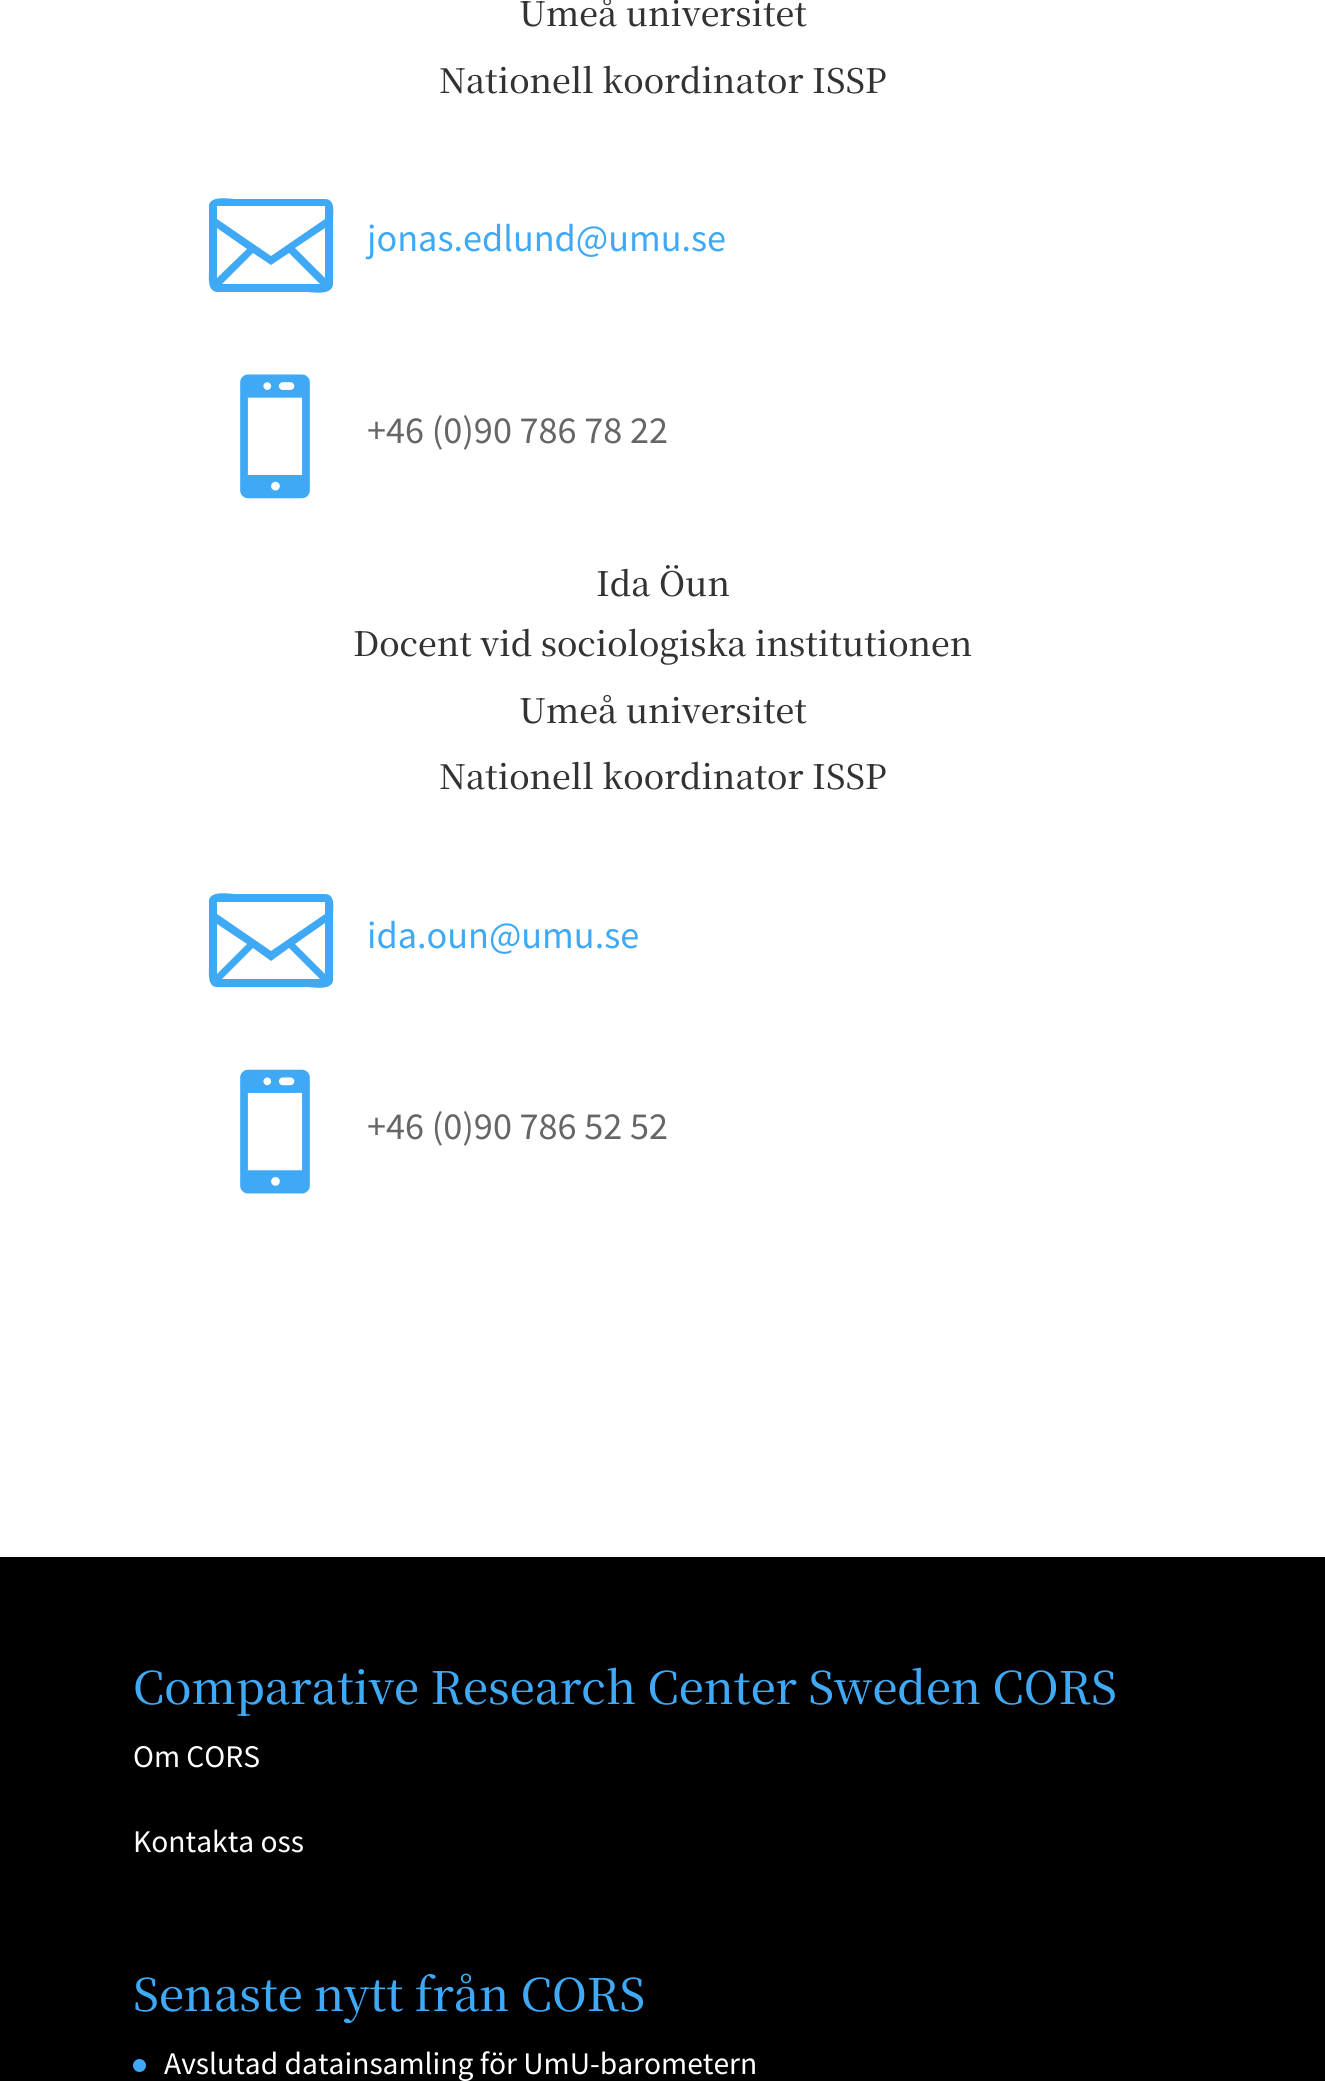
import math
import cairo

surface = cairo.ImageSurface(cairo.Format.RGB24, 1325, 2081)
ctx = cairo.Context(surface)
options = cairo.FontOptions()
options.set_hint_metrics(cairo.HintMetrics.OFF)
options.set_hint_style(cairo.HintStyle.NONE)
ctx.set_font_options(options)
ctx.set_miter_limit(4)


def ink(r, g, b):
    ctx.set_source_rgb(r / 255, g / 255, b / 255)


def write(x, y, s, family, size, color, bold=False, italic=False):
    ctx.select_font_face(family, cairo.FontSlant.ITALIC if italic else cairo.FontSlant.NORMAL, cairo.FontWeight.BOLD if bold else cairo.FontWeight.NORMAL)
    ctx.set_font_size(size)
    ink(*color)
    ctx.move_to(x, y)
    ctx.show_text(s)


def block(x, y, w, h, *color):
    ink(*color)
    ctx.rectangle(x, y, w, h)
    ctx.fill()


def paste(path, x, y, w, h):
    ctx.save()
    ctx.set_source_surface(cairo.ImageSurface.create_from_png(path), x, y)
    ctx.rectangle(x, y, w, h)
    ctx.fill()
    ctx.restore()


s1 = dict(family="Noto Serif TC ExtraLight", size=33.75, color=(51, 51, 51))
s2 = dict(family="Source Sans Pro", size=38.25, color=(63, 169, 245))
s3 = dict(family="Source Sans Pro", size=38.25, color=(102, 102, 102))
s4 = dict(family="Noto Serif TC ExtraLight", size=45, color=(63, 169, 245))
s5 = dict(family="Source Sans Pro", size=31.5, color=(255, 255, 255))

ink(255, 255, 255)
ctx.paint()
write(519, 26, "Umeå universitet", **s1)
write(439, 93, "Nationell koordinator ISSP", **s1)
ink(63, 169, 245)
ctx.new_path()
ctx.move_to(325, 199)
ctx.line_to(235, 199)
ctx.curve_to(231, 199, 211, 195, 209, 205)
ctx.line_to(209, 271)
ctx.curve_to(209, 277, 207, 291, 217, 292)
ctx.line_to(307, 292)
ctx.curve_to(312, 292, 331, 296, 333, 285)
ctx.line_to(333, 219)
ctx.curve_to(333, 214, 336, 199, 325, 199)
ctx.close_path()
ctx.move_to(253, 253)
ctx.line_to(271, 265)
ctx.line_to(289, 253)
ctx.line_to(320, 284)
ctx.line_to(222, 284)
ctx.close_path()
ctx.move_to(217, 278)
ctx.line_to(217, 228)
ctx.line_to(247, 249)
ctx.close_path()
ctx.move_to(295, 248)
ctx.line_to(325, 228)
ctx.line_to(325, 278)
ctx.close_path()
ctx.move_to(325, 206)
ctx.line_to(325, 219)
ctx.line_to(271, 256)
ctx.line_to(217, 219)
ctx.line_to(217, 206)
ctx.close_path()
ctx.fill()
write(367, 251, "jonas.edlund@umu.se", **s2)
paste("pic1.png", 240, 374, 70, 125)
write(367, 443, "+46 (0)90 786 78 22", **s3)
write(596, 596, "Ida Öun", **s1)
write(353, 656, "Docent vid sociologiska institutionen", **s1)
write(519, 723, "Umeå universitet", **s1)
write(439, 789, "Nationell koordinator ISSP", **s1)
ink(63, 169, 245)
ctx.new_path()
ctx.move_to(325, 894)
ctx.line_to(235, 894)
ctx.curve_to(231, 894, 211, 890, 209, 900)
ctx.line_to(209, 966)
ctx.curve_to(209, 972, 207, 987, 217, 987)
ctx.line_to(307, 987)
ctx.curve_to(312, 987, 331, 991, 333, 981)
ctx.line_to(333, 915)
ctx.curve_to(333, 909, 336, 894, 325, 894)
ctx.close_path()
ctx.move_to(253, 948)
ctx.line_to(271, 961)
ctx.line_to(289, 948)
ctx.line_to(320, 979)
ctx.line_to(222, 979)
ctx.close_path()
ctx.move_to(217, 974)
ctx.line_to(217, 924)
ctx.line_to(247, 944)
ctx.close_path()
ctx.move_to(295, 944)
ctx.line_to(325, 923)
ctx.line_to(325, 974)
ctx.close_path()
ctx.move_to(325, 902)
ctx.line_to(325, 914)
ctx.line_to(271, 951)
ctx.line_to(217, 914)
ctx.line_to(217, 902)
ctx.close_path()
ctx.fill()
write(367, 948, "ida.oun@umu.se", **s2)
paste("pic2.png", 240, 1069, 70, 125)
write(367, 1139, "+46 (0)90 786 52 52", **s3)
block(0, 1557, 1325, 524, 0, 0, 0)
write(133, 1704, "Comparative Research Center Sweden CORS", **s4)
write(133, 1767, "Om CORS", **s5)
write(133, 1852, "Kontakta oss", **s5)
write(133, 2011, "Senaste nytt från CORS", **s4)
ctx.new_path()
ctx.arc(139.5, 2065.5, 6.5, 0, 2 * math.pi)
ctx.fill()
write(164, 2074, "Avslutad datainsamling för UmU-barometern", **s5)
surface.write_to_png("screenshot.png")
